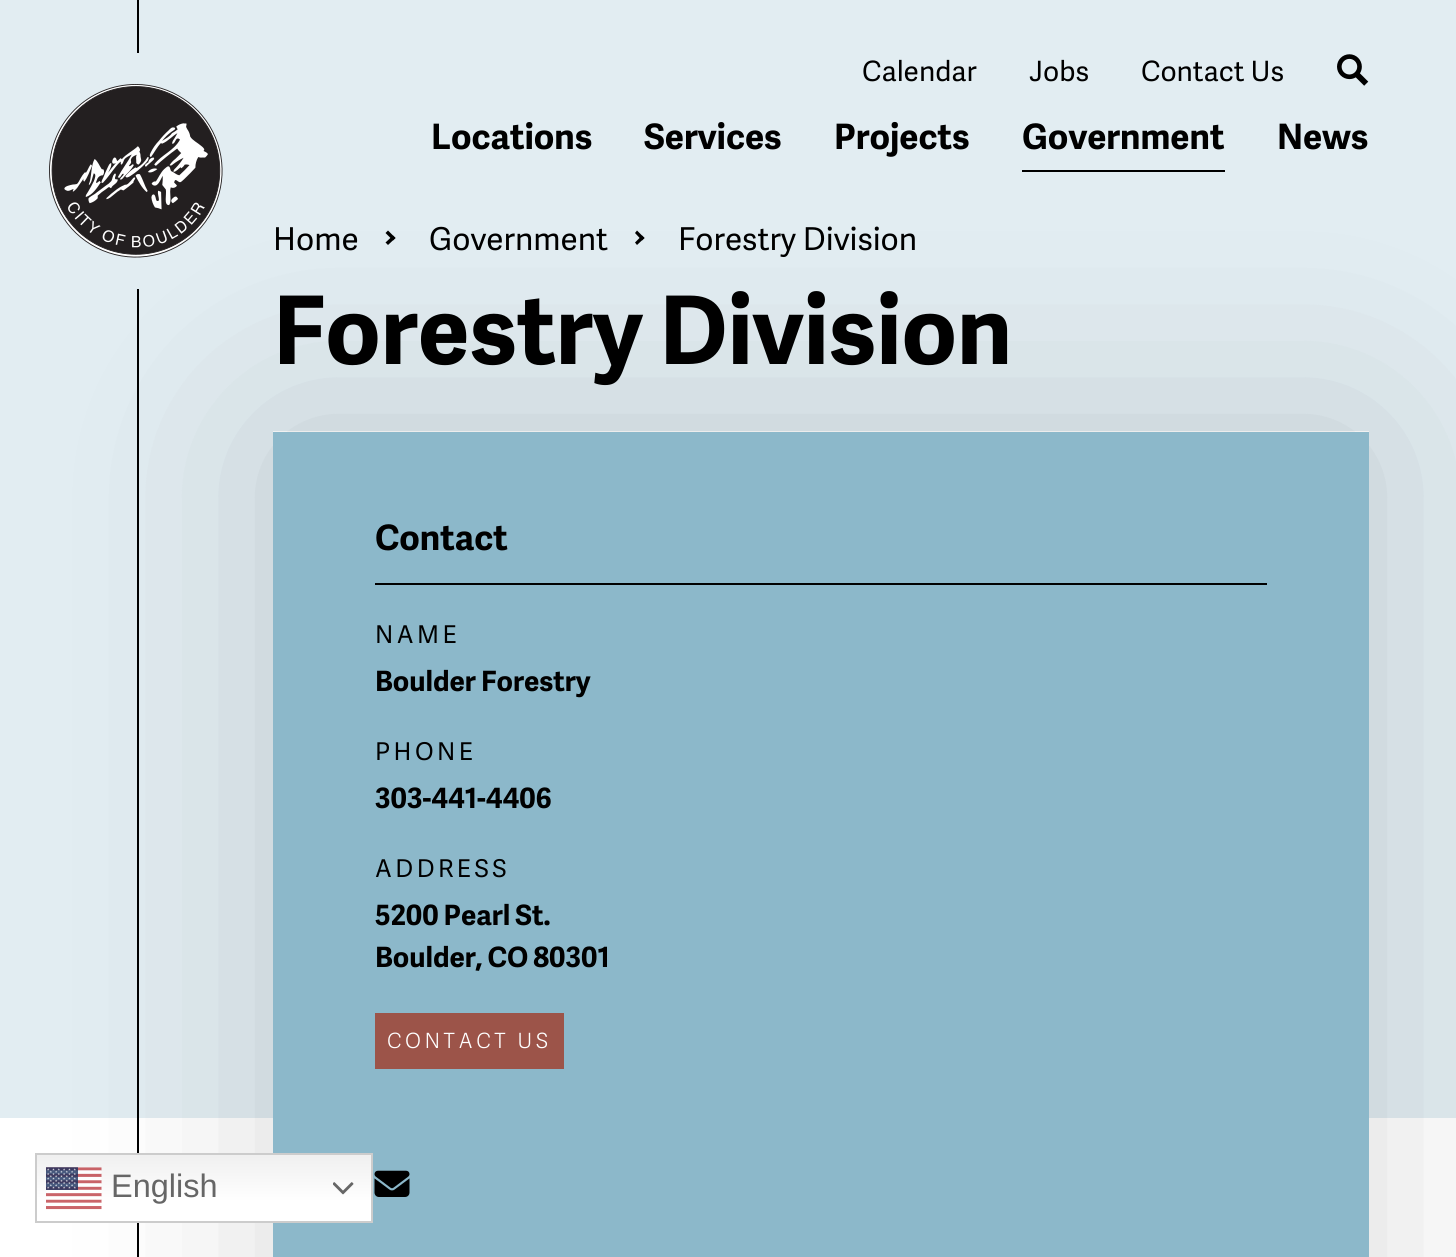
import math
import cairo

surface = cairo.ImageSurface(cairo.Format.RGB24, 1456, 1257)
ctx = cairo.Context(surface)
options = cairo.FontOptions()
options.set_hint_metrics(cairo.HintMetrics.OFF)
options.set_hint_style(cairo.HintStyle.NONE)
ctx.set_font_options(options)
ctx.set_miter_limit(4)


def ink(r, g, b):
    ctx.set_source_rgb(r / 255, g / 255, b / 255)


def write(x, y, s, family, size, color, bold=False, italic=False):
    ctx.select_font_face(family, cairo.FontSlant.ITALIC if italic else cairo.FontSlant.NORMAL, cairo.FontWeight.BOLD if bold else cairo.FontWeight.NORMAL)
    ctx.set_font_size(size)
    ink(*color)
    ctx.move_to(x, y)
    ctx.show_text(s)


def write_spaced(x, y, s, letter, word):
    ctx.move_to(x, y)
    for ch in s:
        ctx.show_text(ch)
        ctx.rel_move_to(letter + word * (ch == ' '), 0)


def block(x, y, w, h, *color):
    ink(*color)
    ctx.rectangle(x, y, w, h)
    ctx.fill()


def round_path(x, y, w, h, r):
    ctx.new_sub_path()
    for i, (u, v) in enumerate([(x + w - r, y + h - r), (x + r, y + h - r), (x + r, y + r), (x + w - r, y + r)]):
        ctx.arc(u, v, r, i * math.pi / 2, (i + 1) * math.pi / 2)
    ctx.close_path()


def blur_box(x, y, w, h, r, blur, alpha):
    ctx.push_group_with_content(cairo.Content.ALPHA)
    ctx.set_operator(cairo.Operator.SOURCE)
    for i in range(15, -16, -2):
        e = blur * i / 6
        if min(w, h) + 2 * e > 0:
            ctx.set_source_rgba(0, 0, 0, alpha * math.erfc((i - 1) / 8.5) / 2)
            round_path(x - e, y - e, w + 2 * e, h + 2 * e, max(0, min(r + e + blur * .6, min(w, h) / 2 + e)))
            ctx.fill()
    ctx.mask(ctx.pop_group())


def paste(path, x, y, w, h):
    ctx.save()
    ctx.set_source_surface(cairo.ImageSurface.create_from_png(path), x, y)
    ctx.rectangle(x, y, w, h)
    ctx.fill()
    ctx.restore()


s1 = dict(family="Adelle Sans", size=28, color=(0, 0, 0))
s2 = dict(family="Adelle Sans", size=35, color=(0, 0, 0), bold=True)
s3 = dict(family="Adelle Sans", size=31.5, color=(0, 0, 0))
s4 = dict(family="Adelle Sans", size=94.5, color=(0, 0, 0), bold=True)
s5 = dict(family="Adelle Sans", size=28, color=(0, 0, 0), bold=True)
s6 = dict(family="Liberation Sans", size=32.5, color=(102, 102, 102))

ink(226, 237, 242)
ctx.paint()
block(137, 0, 2, 53, 0, 0, 0)
block(1022, 170, 203, 2, 0, 0, 0)
ctx.new_path()
ctx.move_to(385.5, 233)
ctx.line_to(388, 230.5)
ctx.line_to(395.5, 238)
ctx.line_to(393, 240.5)
ctx.close_path()
ctx.fill()
ctx.new_path()
ctx.move_to(385.5, 242.5)
ctx.line_to(393, 235.5)
ctx.line_to(395.5, 238)
ctx.line_to(388, 245)
ctx.close_path()
ctx.fill()
ctx.new_path()
ctx.move_to(635, 233)
ctx.line_to(637, 230.5)
ctx.line_to(644.5, 238)
ctx.line_to(642, 240.5)
ctx.close_path()
ctx.fill()
ctx.new_path()
ctx.move_to(635, 242.5)
ctx.line_to(642, 235.5)
ctx.line_to(644.5, 238)
ctx.line_to(637, 245)
ctx.close_path()
ctx.fill()
block(273, 431, 1096, 1, 255, 255, 255)
block(0, 1118, 1456, 139, 255, 255, 255)
ink(0, 0, 0)
blur_box(273, 432, 1096, 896, 0, 109.5, 0.15)
paste("pic1.png", 49, 84, 174, 174)
write(862, 81, "Calendar", **s1)
write(1029, 81, "Jobs", **s1)
write(1141, 81, "Contact Us", **s1)
paste("pic2.png", 1337, 54, 32, 32)
write(431, 149, "Locations", **s2)
write(644, 149, "Services", **s2)
write(834, 149, "Projects", **s2)
write(1022, 149, "Government", **s2)
write(1277, 149, "News", **s2)
write(273, 250, "Home", **s3)
write(429, 250, "Government", **s3)
write(678, 250, "Forestry Division", **s3)
block(137, 289, 2, 968, 0, 0, 0)
write(273, 364, "Forestry Division", **s4)
block(273, 432, 1096, 825, 140, 184, 202)
block(375, 583, 892, 2, 0, 0, 0)
write(375, 550, "Contact", **s2)
ctx.select_font_face("Adelle Sans")
ctx.set_font_size(24.5)
write_spaced(375, 643, "NAME", 3.5, 0)
write(375, 691, "Boulder", **s5)
write(481, 691, "Forestry", **s5)
ctx.select_font_face("Adelle Sans")
ctx.set_font_size(24.5)
write_spaced(375, 760, "PHONE", 3.5, 0)
write(375, 808, "303-441-4406", **s5)
ctx.select_font_face("Adelle Sans")
ctx.set_font_size(24.5)
write_spaced(375, 877, "ADDRESS", 3.5, 0)
write(375, 925, "5200 Pearl St.", **s5)
write(375, 967, "Boulder, CO 80301", **s5)
block(375, 1013, 189, 56, 156, 84, 73)
ctx.select_font_face("Adelle Sans Light")
ctx.set_font_size(21)
ink(255, 255, 255)
write_spaced(387, 1048, "CONTACT US", 3.5, 0)
paste("pic3.png", 374, 1170, 36, 27)
gradient = cairo.LinearGradient(204, 1153, 204, 1223)
gradient.add_color_stop_rgba(0, 0.937, 0.937, 0.937, 1)
gradient.add_color_stop_rgba(0.7, 1, 1, 1, 1)
ctx.set_source(gradient)
ctx.rectangle(37, 1155, 334, 66)
ctx.fill()
ctx.rectangle(36, 1154, 336, 68)
ink(204, 204, 204)
ctx.stroke()
paste("pic4.png", 46, 1167, 56, 43)
write(111, 1197, "English", **s6)
paste("pic5.png", 333, 1182, 21, 13)
surface.write_to_png("screenshot.png")
